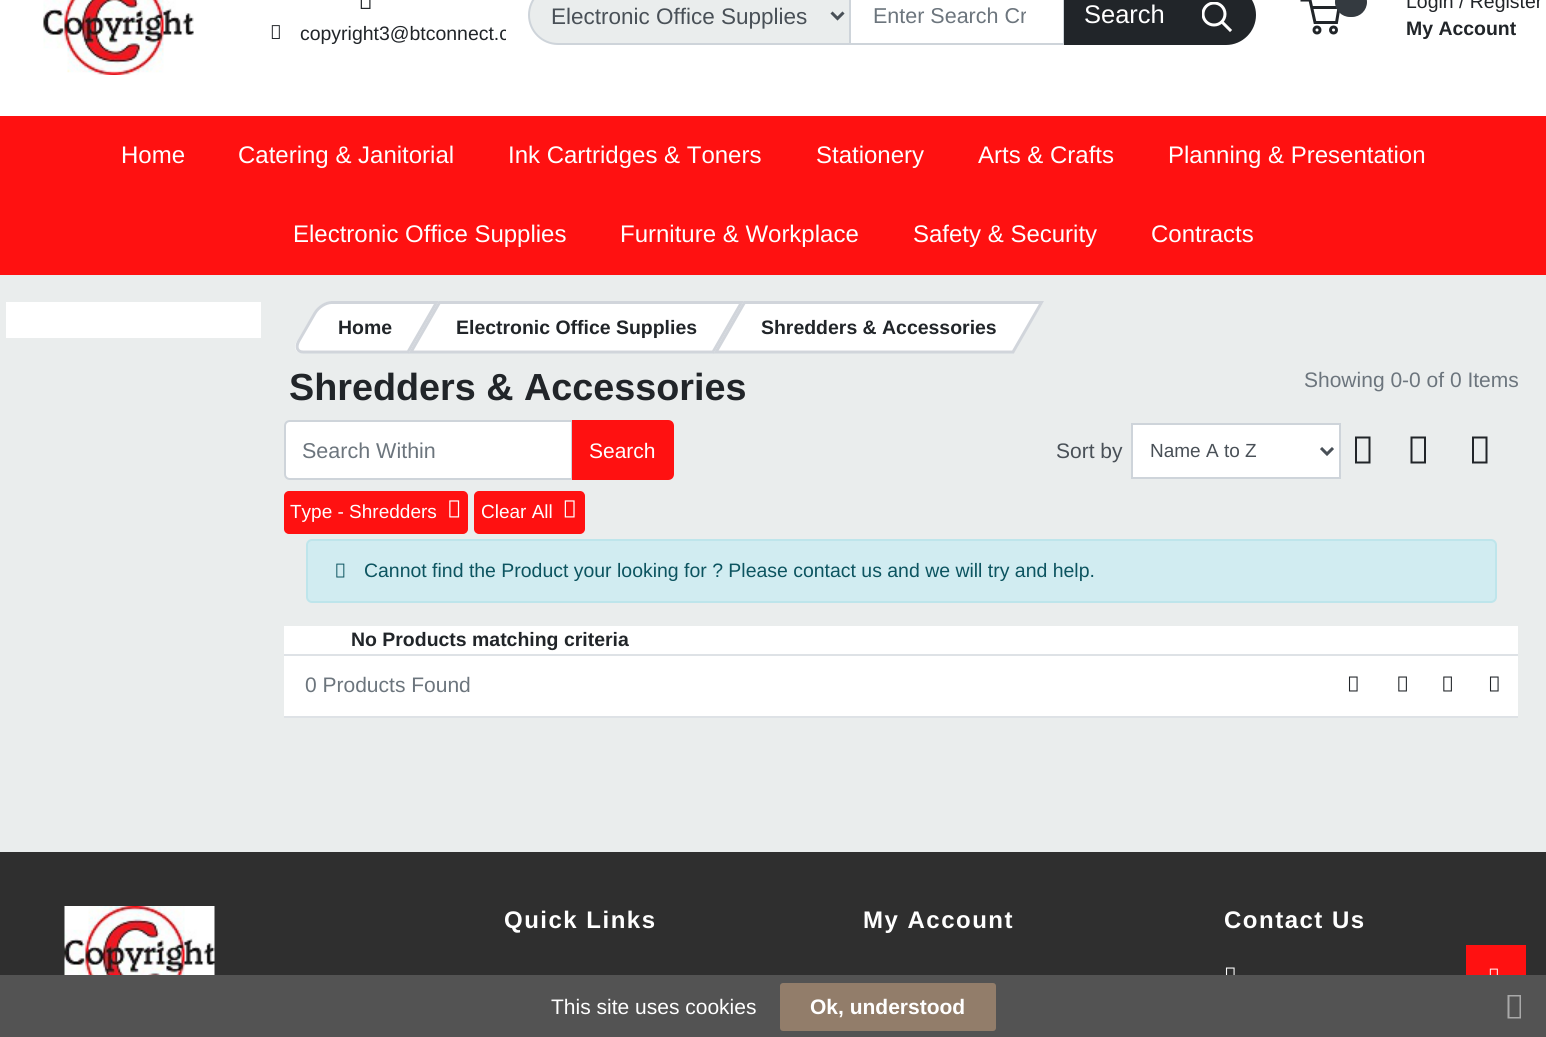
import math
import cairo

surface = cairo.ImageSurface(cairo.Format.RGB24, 1546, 1037)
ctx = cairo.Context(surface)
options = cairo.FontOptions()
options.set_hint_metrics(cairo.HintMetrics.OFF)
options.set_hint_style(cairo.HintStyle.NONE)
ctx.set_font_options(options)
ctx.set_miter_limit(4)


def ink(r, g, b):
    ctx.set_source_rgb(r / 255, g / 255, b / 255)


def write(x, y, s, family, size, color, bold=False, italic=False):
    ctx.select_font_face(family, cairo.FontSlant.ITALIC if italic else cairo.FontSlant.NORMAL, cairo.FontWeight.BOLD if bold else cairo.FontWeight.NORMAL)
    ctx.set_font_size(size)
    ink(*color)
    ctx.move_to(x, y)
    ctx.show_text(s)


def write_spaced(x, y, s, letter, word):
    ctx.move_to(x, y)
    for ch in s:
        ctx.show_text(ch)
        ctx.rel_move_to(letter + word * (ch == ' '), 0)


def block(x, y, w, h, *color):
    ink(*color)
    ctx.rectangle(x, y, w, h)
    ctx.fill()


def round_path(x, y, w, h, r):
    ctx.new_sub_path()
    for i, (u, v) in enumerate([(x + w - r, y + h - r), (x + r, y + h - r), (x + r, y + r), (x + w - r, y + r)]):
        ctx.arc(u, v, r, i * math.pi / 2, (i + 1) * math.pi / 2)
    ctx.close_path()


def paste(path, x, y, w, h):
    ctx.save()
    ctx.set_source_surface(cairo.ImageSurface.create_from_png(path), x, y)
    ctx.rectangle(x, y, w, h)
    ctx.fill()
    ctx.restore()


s1 = dict(family="Liberation Sans", size=22.5, color=(73, 80, 87))
s2 = dict(family="Liberation Sans", size=21.5, color=(108, 117, 125))
s3 = dict(family="Liberation Sans", size=25.5, color=(255, 255, 255))
s4 = dict(family="Liberation Sans", size=19.45, color=(33, 37, 41))
s5 = dict(family="Liberation Sans", size=19.45, color=(33, 37, 41), bold=True)
s6 = dict(family="Liberation Sans", size=24, color=(255, 255, 255))
s7 = dict(family="Liberation Sans", size=37.75, color=(33, 37, 41), bold=True)
s8 = dict(family="Liberation Sans", size=21, color=(108, 117, 125))
s9 = dict(family="Liberation Sans", size=21, color=(255, 255, 255))
s10 = dict(family="Liberation Sans", size=21, color=(73, 80, 87))
s11 = dict(family="Liberation Sans", size=19, color=(73, 80, 87))
s12 = dict(family="Liberation Sans", size=19, color=(255, 255, 255))
s13 = dict(family="Liberation Sans", size=19.45, color=(12, 84, 96))
s14 = dict(family="Liberation Sans", size=21, color=(255, 255, 255), bold=True)

ink(234, 237, 237)
ctx.paint()
block(0, 0, 1546, 116, 255, 255, 255)
paste("pic1.png", 43, 0, 151, 75)
ink(234, 237, 237)
ctx.new_path()
ctx.move_to(558, -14)
ctx.line_to(849, -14)
ctx.curve_to(849.5, -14, 850, -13.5, 850, -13)
ctx.line_to(850, 43)
ctx.curve_to(850, 43.5, 849.5, 44, 849, 44)
ctx.line_to(558, 44)
ctx.curve_to(542, 44, 529, 31, 529, 15)
ctx.curve_to(529, -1, 542, -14, 558, -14)
ctx.close_path()
ctx.fill_preserve()
ink(206, 212, 218)
ctx.stroke()
ctx.new_path()
ctx.move_to(831.5, 12.5)
ctx.line_to(837.5, 18.5)
ctx.line_to(843.5, 12.5)
ink(73, 80, 87)
ctx.set_line_width(3)
ctx.stroke()
write(551, 24, "Electronic Office Supplies", **s1)
ctx.rectangle(850, -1, 214, 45)
ink(206, 212, 218)
ctx.set_line_width(2)
ctx.stroke()
ctx.save()
ctx.rectangle(873, 3, 153, 24)
ctx.clip()
write(873, 23, "Enter Search Cr", **s2)
ctx.restore()
ink(33, 37, 41)
ctx.new_path()
ctx.move_to(1064, -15)
ctx.line_to(1226, -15)
ctx.curve_to(1242.5, -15, 1256, -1.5, 1256, 15)
ctx.curve_to(1256, 31.5, 1242.5, 45, 1226, 45)
ctx.line_to(1064, 45)
ctx.close_path()
ctx.fill()
write(1084, 23, "Search", **s3)
ctx.new_path()
ctx.move_to(1230, 30)
ctx.line_to(1222.5, 22.5)
ctx.set_line_width(3)
ctx.set_line_cap(cairo.LineCap.SQUARE)
ctx.stroke()
ctx.save()
ctx.rectangle(1202, 2, 33, 33)
ctx.clip()
ctx.arc(1214, 14, 11, 0, 2 * math.pi)
ctx.set_line_cap(cairo.LineCap.BUTT)
ctx.stroke()
ctx.restore()
ctx.new_path()
ctx.move_to(1311.5, 7.5)
ctx.line_to(1339, 7.5)
ctx.line_to(1336.5, 22.5)
ctx.line_to(1315, 22.5)
ctx.line_to(1310, 0)
ctx.line_to(1300.5, 0)
ink(33, 37, 41)
ctx.set_line_cap(cairo.LineCap.BUTT)
ctx.stroke()
ink(52, 58, 64)
round_path(1335, -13, 32, 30, 15)
ctx.fill()
ctx.arc(1317, 30, 3, 0, 2 * math.pi)
ink(33, 37, 41)
ctx.stroke()
ctx.arc(1333.5, 30, 3, 0, 2 * math.pi)
ctx.stroke()
write(1406, 8, "Login / Register", **s4)
write(1406, 35, "My Account", **s5)
paste("pic2.png", 360, 0, 11, 9)
paste("pic3.png", 271, 25, 9, 14)
ctx.save()
ctx.rectangle(248, 0, 258, 48)
ctx.clip()
write(300, 40, "copyright3@btconnect.c", **s4)
ctx.restore()
block(0, 116, 1546, 159, 255, 17, 17)
write(121, 163, "Home", **s6)
write(238, 163, "Catering & Janitorial", **s6)
write(508, 163, "Ink Cartridges & Toners", **s6)
write(816, 163, "Stationery", **s6)
write(978, 163, "Arts & Crafts", **s6)
write(1168, 163, "Planning & Presentation", **s6)
write(293, 242, "Electronic Office Supplies", **s6)
write(620, 242, "Furniture & Workplace", **s6)
write(913, 242, "Safety & Security", **s6)
write(1151, 242, "Contracts", **s6)
block(6, 302, 255, 36, 255, 255, 255)
ctx.new_path()
ctx.move_to(333, 301)
ctx.line_to(439, 301)
ctx.line_to(409, 353)
ctx.line_to(302, 353)
ctx.curve_to(296, 353, 293, 348, 297, 341)
ctx.line_to(314, 313)
ctx.curve_to(317, 306, 326, 301, 333, 301)
ctx.close_path()
ctx.fill()
ctx.new_path()
ctx.move_to(331.5, 302.5)
ctx.line_to(436.5, 302.5)
ctx.line_to(408, 352)
ctx.line_to(303, 352)
ctx.curve_to(297.5, 352, 295.5, 347.5, 298.5, 341.5)
ctx.line_to(315, 313)
ctx.curve_to(318.5, 307, 326, 302.5, 331.5, 302.5)
ctx.close_path()
ink(209, 213, 219)
ctx.stroke()
write(338, 334, "Home", **s5)
ink(255, 255, 255)
ctx.new_path()
ctx.move_to(439, 301)
ctx.line_to(744, 301)
ctx.line_to(714, 353)
ctx.line_to(409, 353)
ctx.close_path()
ctx.fill()
ctx.new_path()
ctx.move_to(439.5, 302.5)
ctx.line_to(741.5, 302.5)
ctx.line_to(713, 352)
ctx.line_to(411, 352)
ctx.close_path()
ink(209, 213, 219)
ctx.stroke()
write(456, 334, "Electronic Office Supplies", **s5)
ink(255, 255, 255)
ctx.new_path()
ctx.move_to(744, 301)
ctx.line_to(1044, 301)
ctx.line_to(1013, 353)
ctx.line_to(714, 353)
ctx.close_path()
ctx.fill()
ctx.new_path()
ctx.move_to(744.5, 302.5)
ctx.line_to(1041.5, 302.5)
ctx.line_to(1013, 352)
ctx.line_to(716, 352)
ctx.close_path()
ink(209, 213, 219)
ctx.stroke()
write(761, 334, "Shredders & Accessories", **s5)
write(289, 400, "Shredders & Accessories", **s7)
write(1304, 387, "Showing 0-0 of 0 Items", **s8)
ink(255, 255, 255)
ctx.new_path()
ctx.move_to(290, 421)
ctx.line_to(572, 421)
ctx.line_to(572, 479)
ctx.line_to(290, 479)
ctx.curve_to(287, 479, 285, 477, 285, 474)
ctx.line_to(285, 426)
ctx.curve_to(285, 423, 287, 421, 290, 421)
ctx.close_path()
ctx.fill_preserve()
ink(206, 212, 218)
ctx.set_line_width(2)
ctx.stroke()
write(302, 458, "Search Within", **s2)
ink(255, 17, 17)
ctx.new_path()
ctx.move_to(573, 421)
ctx.line_to(668, 421)
ctx.curve_to(671, 421, 673, 423, 673, 426)
ctx.line_to(673, 474)
ctx.curve_to(673, 477, 671, 479, 668, 479)
ctx.line_to(573, 479)
ctx.close_path()
ctx.fill_preserve()
ctx.stroke()
write(589, 458, "Search", **s9)
write(1056, 458, "Sort by", **s10)
ink(255, 255, 255)
ctx.rectangle(1132, 424, 208, 54)
ctx.fill_preserve()
ink(206, 212, 218)
ctx.stroke()
ctx.new_path()
ctx.move_to(1321, 448)
ctx.line_to(1327, 454)
ctx.line_to(1333, 448)
ink(73, 80, 87)
ctx.set_line_width(3)
ctx.stroke()
write(1150, 457, "Name A to Z", **s11)
ink(33, 37, 41)
ctx.new_path()
ctx.move_to(1355, 463.5)
ctx.line_to(1355, 436.5)
ctx.line_to(1370.5, 436.5)
ctx.line_to(1370.5, 463.5)
ctx.close_path()
ctx.move_to(1357, 461.5)
ctx.line_to(1368.5, 461.5)
ctx.line_to(1368.5, 438.5)
ctx.line_to(1357, 438.5)
ctx.close_path()
ctx.fill()
ctx.new_path()
ctx.move_to(1410.5, 463.5)
ctx.line_to(1410.5, 436.5)
ctx.line_to(1426, 436.5)
ctx.line_to(1426, 463.5)
ctx.close_path()
ctx.move_to(1412.5, 461.5)
ctx.line_to(1424, 461.5)
ctx.line_to(1424, 438.5)
ctx.line_to(1412.5, 438.5)
ctx.close_path()
ctx.fill()
ctx.new_path()
ctx.move_to(1472, 463.5)
ctx.line_to(1472, 436.5)
ctx.line_to(1487.5, 436.5)
ctx.line_to(1487.5, 463.5)
ctx.close_path()
ctx.move_to(1474, 461.5)
ctx.line_to(1485.5, 461.5)
ctx.line_to(1485.5, 438.5)
ctx.line_to(1474, 438.5)
ctx.close_path()
ctx.fill()
ink(255, 17, 17)
round_path(285, 492, 182, 41, 4)
ctx.fill_preserve()
ctx.set_line_width(2)
ctx.stroke()
write(290, 518, "Type - Shredders", **s12)
paste("pic4.png", 449, 500, 11, 18)
ink(255, 17, 17)
round_path(475, 492, 109, 41, 4)
ctx.fill_preserve()
ctx.stroke()
write(481, 518, "Clear All", **s12)
paste("pic5.png", 564, 500, 11, 18)
ink(209, 236, 241)
round_path(307, 540, 1189, 62, 5)
ctx.fill_preserve()
ink(190, 229, 235)
ctx.stroke()
paste("pic6.png", 336, 563, 9, 15)
write(364, 577, "Cannot find the Product your looking for ? Please contact us and we will try and help.", **s13)
block(284, 626, 1234, 28, 255, 255, 255)
write(351, 646, "No Products matching criteria", **s5)
block(284, 656, 1234, 60, 255, 255, 255)
block(284, 654, 1234, 2, 222, 226, 230)
block(284, 716, 1234, 2, 222, 226, 230)
write(305, 692, "0 Products Found", **s8)
paste("pic7.png", 1348, 676, 10, 16)
paste("pic8.png", 1398, 676, 9, 16)
paste("pic8.png", 1443, 676, 9, 16)
paste("pic7.png", 1489, 676, 10, 16)
block(0, 852, 1546, 123, 47, 47, 47)
paste("pic9.png", 64, 906, 151, 69)
ctx.select_font_face("Liberation Sans", cairo.FontSlant.NORMAL, cairo.FontWeight.BOLD)
ctx.set_font_size(24)
ink(255, 255, 255)
write_spaced(504, 928, "Quick Links", 1.5, 0)
write_spaced(863, 928, "My Account", 1.5, 0)
write_spaced(1224, 928, "Contact Us", 1.5, 0)
paste("pic10.png", 1225, 967, 10, 8)
block(1466, 945, 60, 30, 255, 17, 17)
paste("pic11.png", 1489, 968, 9, 7)
block(0, 975, 1546, 62, 83, 83, 83)
write(551, 1014, "This site uses cookies", **s9)
ink(146, 125, 106)
round_path(780, 983, 216, 48, 3)
ctx.fill()
write(810, 1014, "Ok, understood", **s14)
ink(169, 169, 169)
ctx.new_path()
ctx.move_to(1507.5, 1018.5)
ctx.line_to(1507.5, 995)
ctx.line_to(1521, 995)
ctx.line_to(1521, 1018.5)
ctx.close_path()
ctx.move_to(1509.5, 1017)
ctx.line_to(1519.5, 1017)
ctx.line_to(1519.5, 996.5)
ctx.line_to(1509.5, 996.5)
ctx.close_path()
ctx.fill()
surface.write_to_png("screenshot.png")
